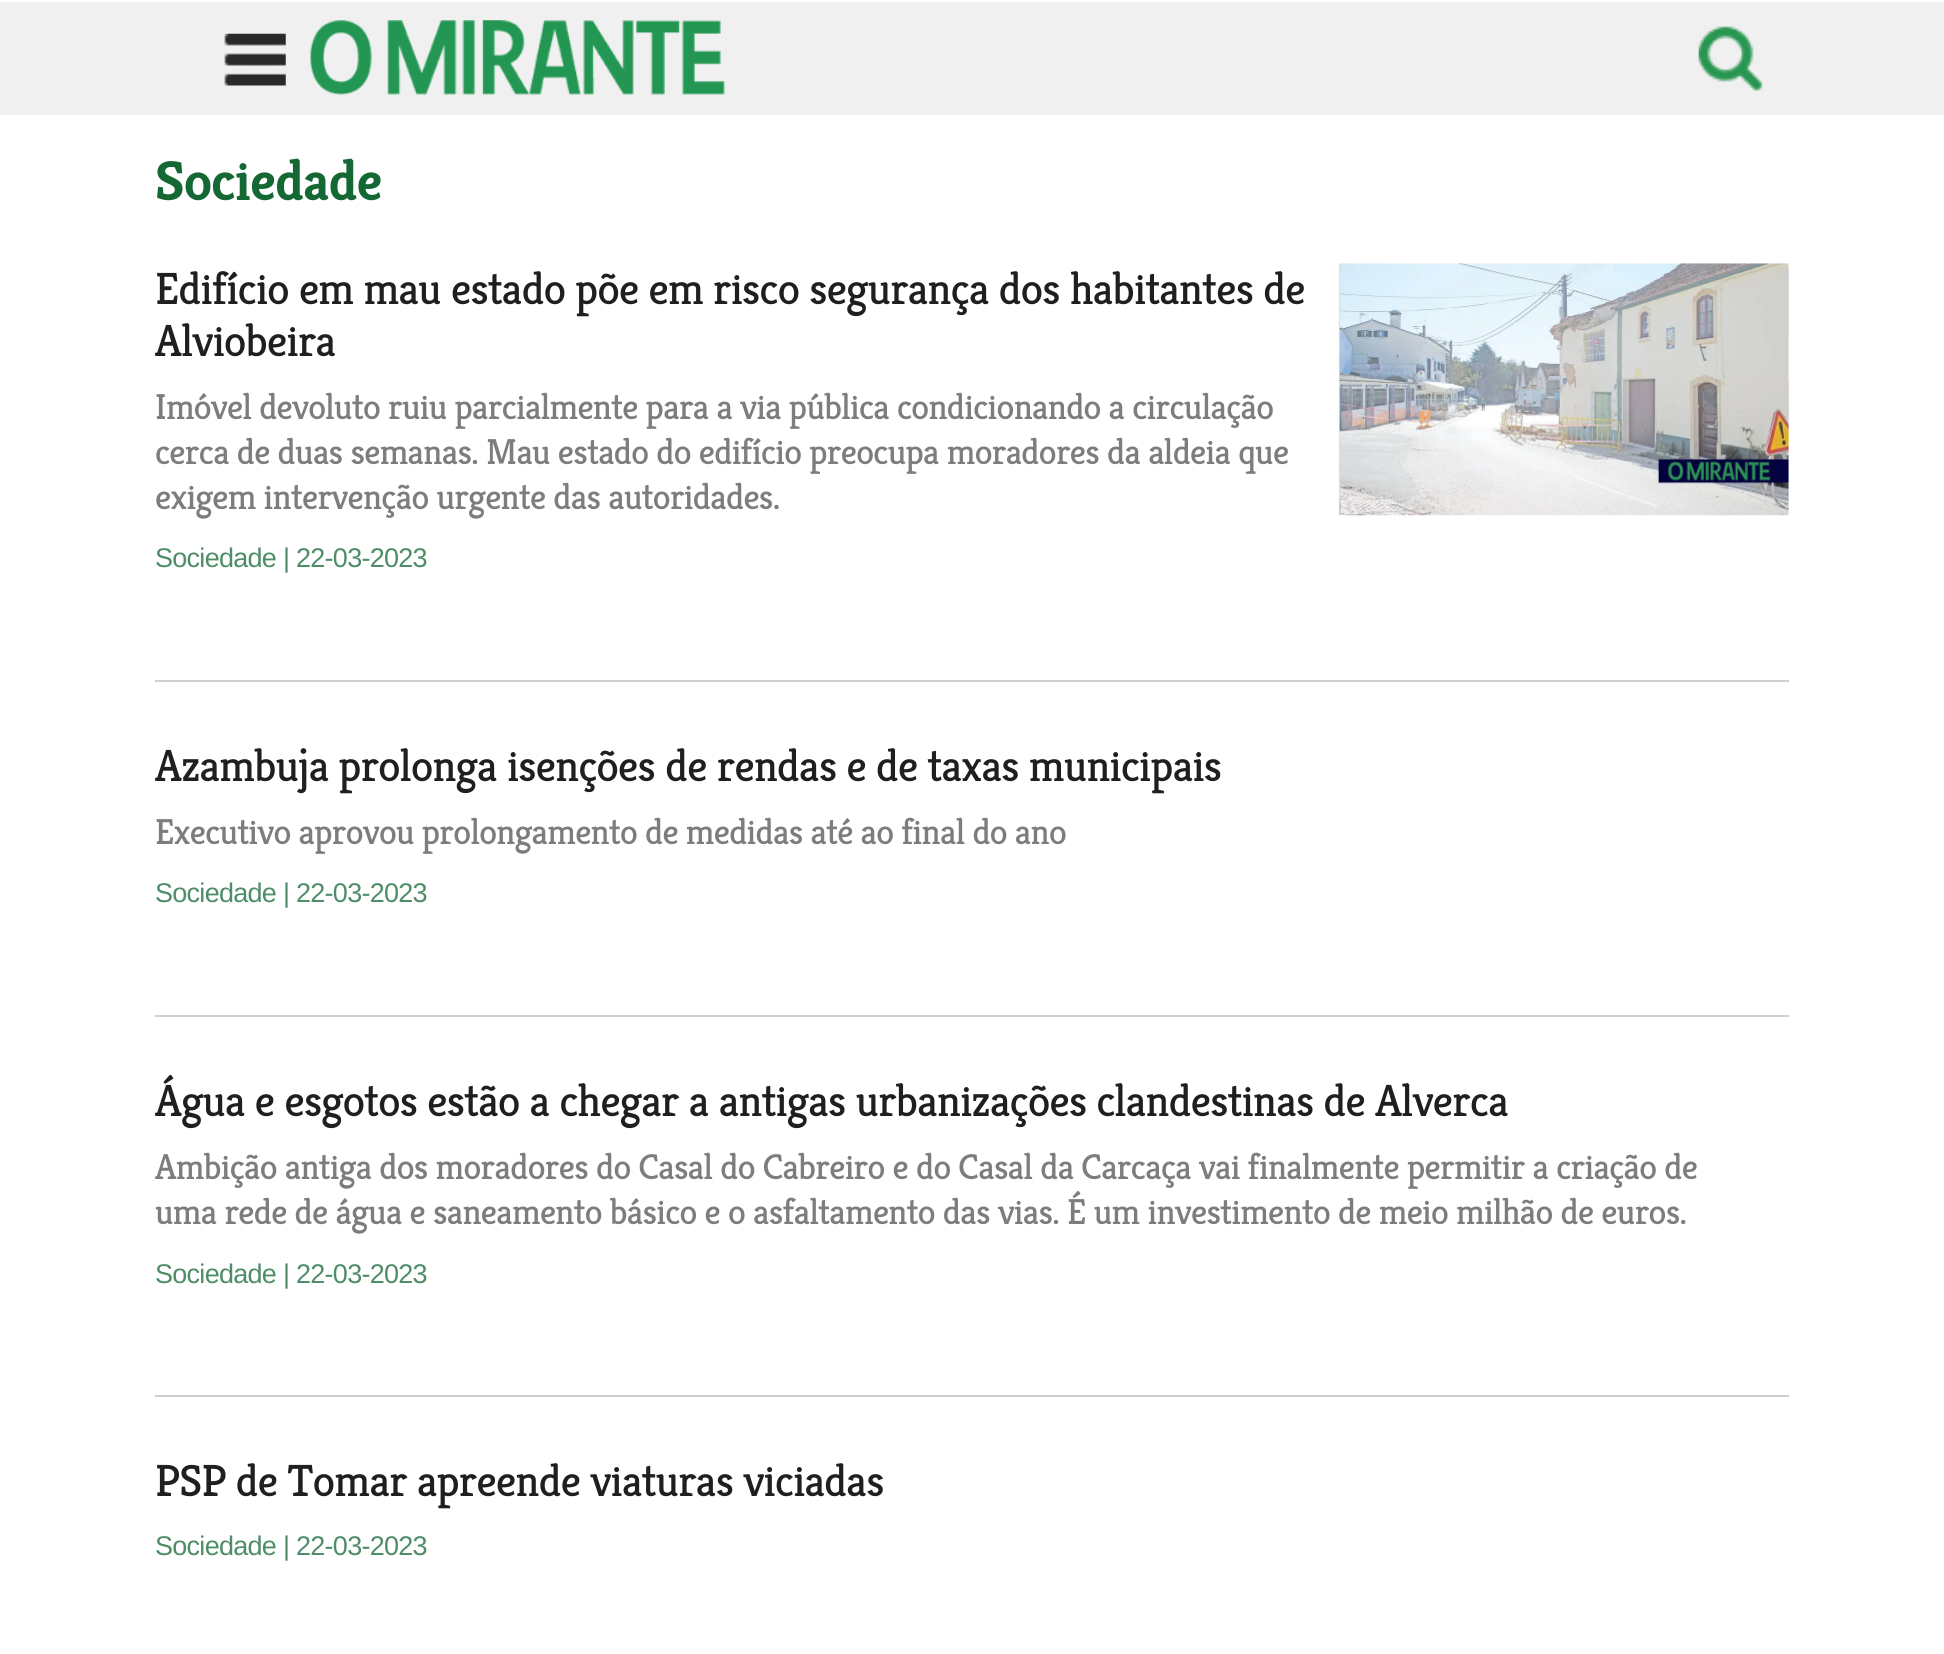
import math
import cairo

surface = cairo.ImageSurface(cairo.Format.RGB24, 1944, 1654)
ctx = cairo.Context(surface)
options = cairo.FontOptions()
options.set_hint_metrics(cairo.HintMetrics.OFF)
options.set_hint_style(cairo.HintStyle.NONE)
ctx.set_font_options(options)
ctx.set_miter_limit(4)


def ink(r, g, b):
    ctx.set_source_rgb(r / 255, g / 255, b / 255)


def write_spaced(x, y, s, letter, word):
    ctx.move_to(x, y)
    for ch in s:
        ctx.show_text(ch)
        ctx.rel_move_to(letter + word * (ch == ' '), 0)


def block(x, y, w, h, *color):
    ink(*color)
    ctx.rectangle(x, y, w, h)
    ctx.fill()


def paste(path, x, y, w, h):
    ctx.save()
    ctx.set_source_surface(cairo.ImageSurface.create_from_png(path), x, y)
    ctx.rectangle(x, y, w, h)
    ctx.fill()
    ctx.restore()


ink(255, 255, 255)
ctx.paint()
block(0, 2, 1944, 113, 240, 240, 240)
paste("pic1.png", 224, 33, 62, 53)
paste("pic2.png", 310, 20, 415, 75)
paste("pic3.png", 1698, 26, 65, 65)
ctx.select_font_face("Kreon", cairo.FontSlant.NORMAL, cairo.FontWeight.BOLD)
ctx.set_font_size(56.25)
ink(20, 104, 51)
write_spaced(155, 200, "Sociedade", -0.72, 0)
block(155, 680, 1634, 2, 207, 207, 207)
ctx.select_font_face("Kreon")
ctx.set_font_size(45)
ink(31, 31, 31)
write_spaced(155, 304, "Edifício em mau estado põe em risco segurança dos habitantes de", -0.72, 0)
write_spaced(155, 356, "Alviobeira", -0.72, 0)
ctx.set_font_size(36)
ink(125, 125, 125)
write_spaced(155, 419, "Imóvel devoluto ruiu parcialmente para a via pública condicionando a circulação", -0.72, 0)
write_spaced(155, 464, "cerca de duas semanas. Mau estado do edifício preocupa moradores da aldeia que", -0.72, 0)
write_spaced(155, 509, "exigem intervenção urgente das autoridades.", -0.72, 0)
ctx.select_font_face("Liberation Sans")
ctx.set_font_size(27)
ink(78, 141, 103)
write_spaced(155, 567, "Sociedade | 22-03-2023", -0.72, 0)
paste("pic4.png", 1338, 263, 451, 253)
block(155, 1015, 1634, 2, 207, 207, 207)
ctx.select_font_face("Kreon")
ctx.set_font_size(45)
ink(31, 31, 31)
write_spaced(155, 781, "Azambuja prolonga isenções de rendas e de taxas municipais", -0.72, 0)
ctx.set_font_size(36)
ink(125, 125, 125)
write_spaced(155, 844, "Executivo aprovou prolongamento de medidas até ao final do ano", -0.72, 0)
ctx.select_font_face("Liberation Sans")
ctx.set_font_size(27)
ink(78, 141, 103)
write_spaced(155, 902, "Sociedade | 22-03-2023", -0.72, 0)
block(155, 1395, 1634, 2, 207, 207, 207)
ctx.select_font_face("Kreon")
ctx.set_font_size(45)
ink(31, 31, 31)
write_spaced(155, 1116, "Água e esgotos estão a chegar a antigas urbanizações clandestinas de Alverca", -0.72, 0)
ctx.set_font_size(36)
ink(125, 125, 125)
write_spaced(155, 1179, "Ambição antiga dos moradores do Casal do Cabreiro e do Casal da Carcaça vai finalmente permitir a criação de", -0.72, 0)
write_spaced(155, 1224, "uma rede de água e saneamento básico e o asfaltamento das vias. É um investimento de meio milhão de euros.", -0.72, 0)
ctx.select_font_face("Liberation Sans")
ctx.set_font_size(27)
ink(78, 141, 103)
write_spaced(155, 1283, "Sociedade | 22-03-2023", -0.72, 0)
ctx.select_font_face("Kreon")
ctx.set_font_size(45)
ink(31, 31, 31)
write_spaced(155, 1496, "PSP de Tomar apreende viaturas viciadas", -0.72, 0)
ctx.select_font_face("Liberation Sans")
ctx.set_font_size(27)
ink(78, 141, 103)
write_spaced(155, 1555, "Sociedade | 22-03-2023", -0.72, 0)
surface.write_to_png("screenshot.png")
